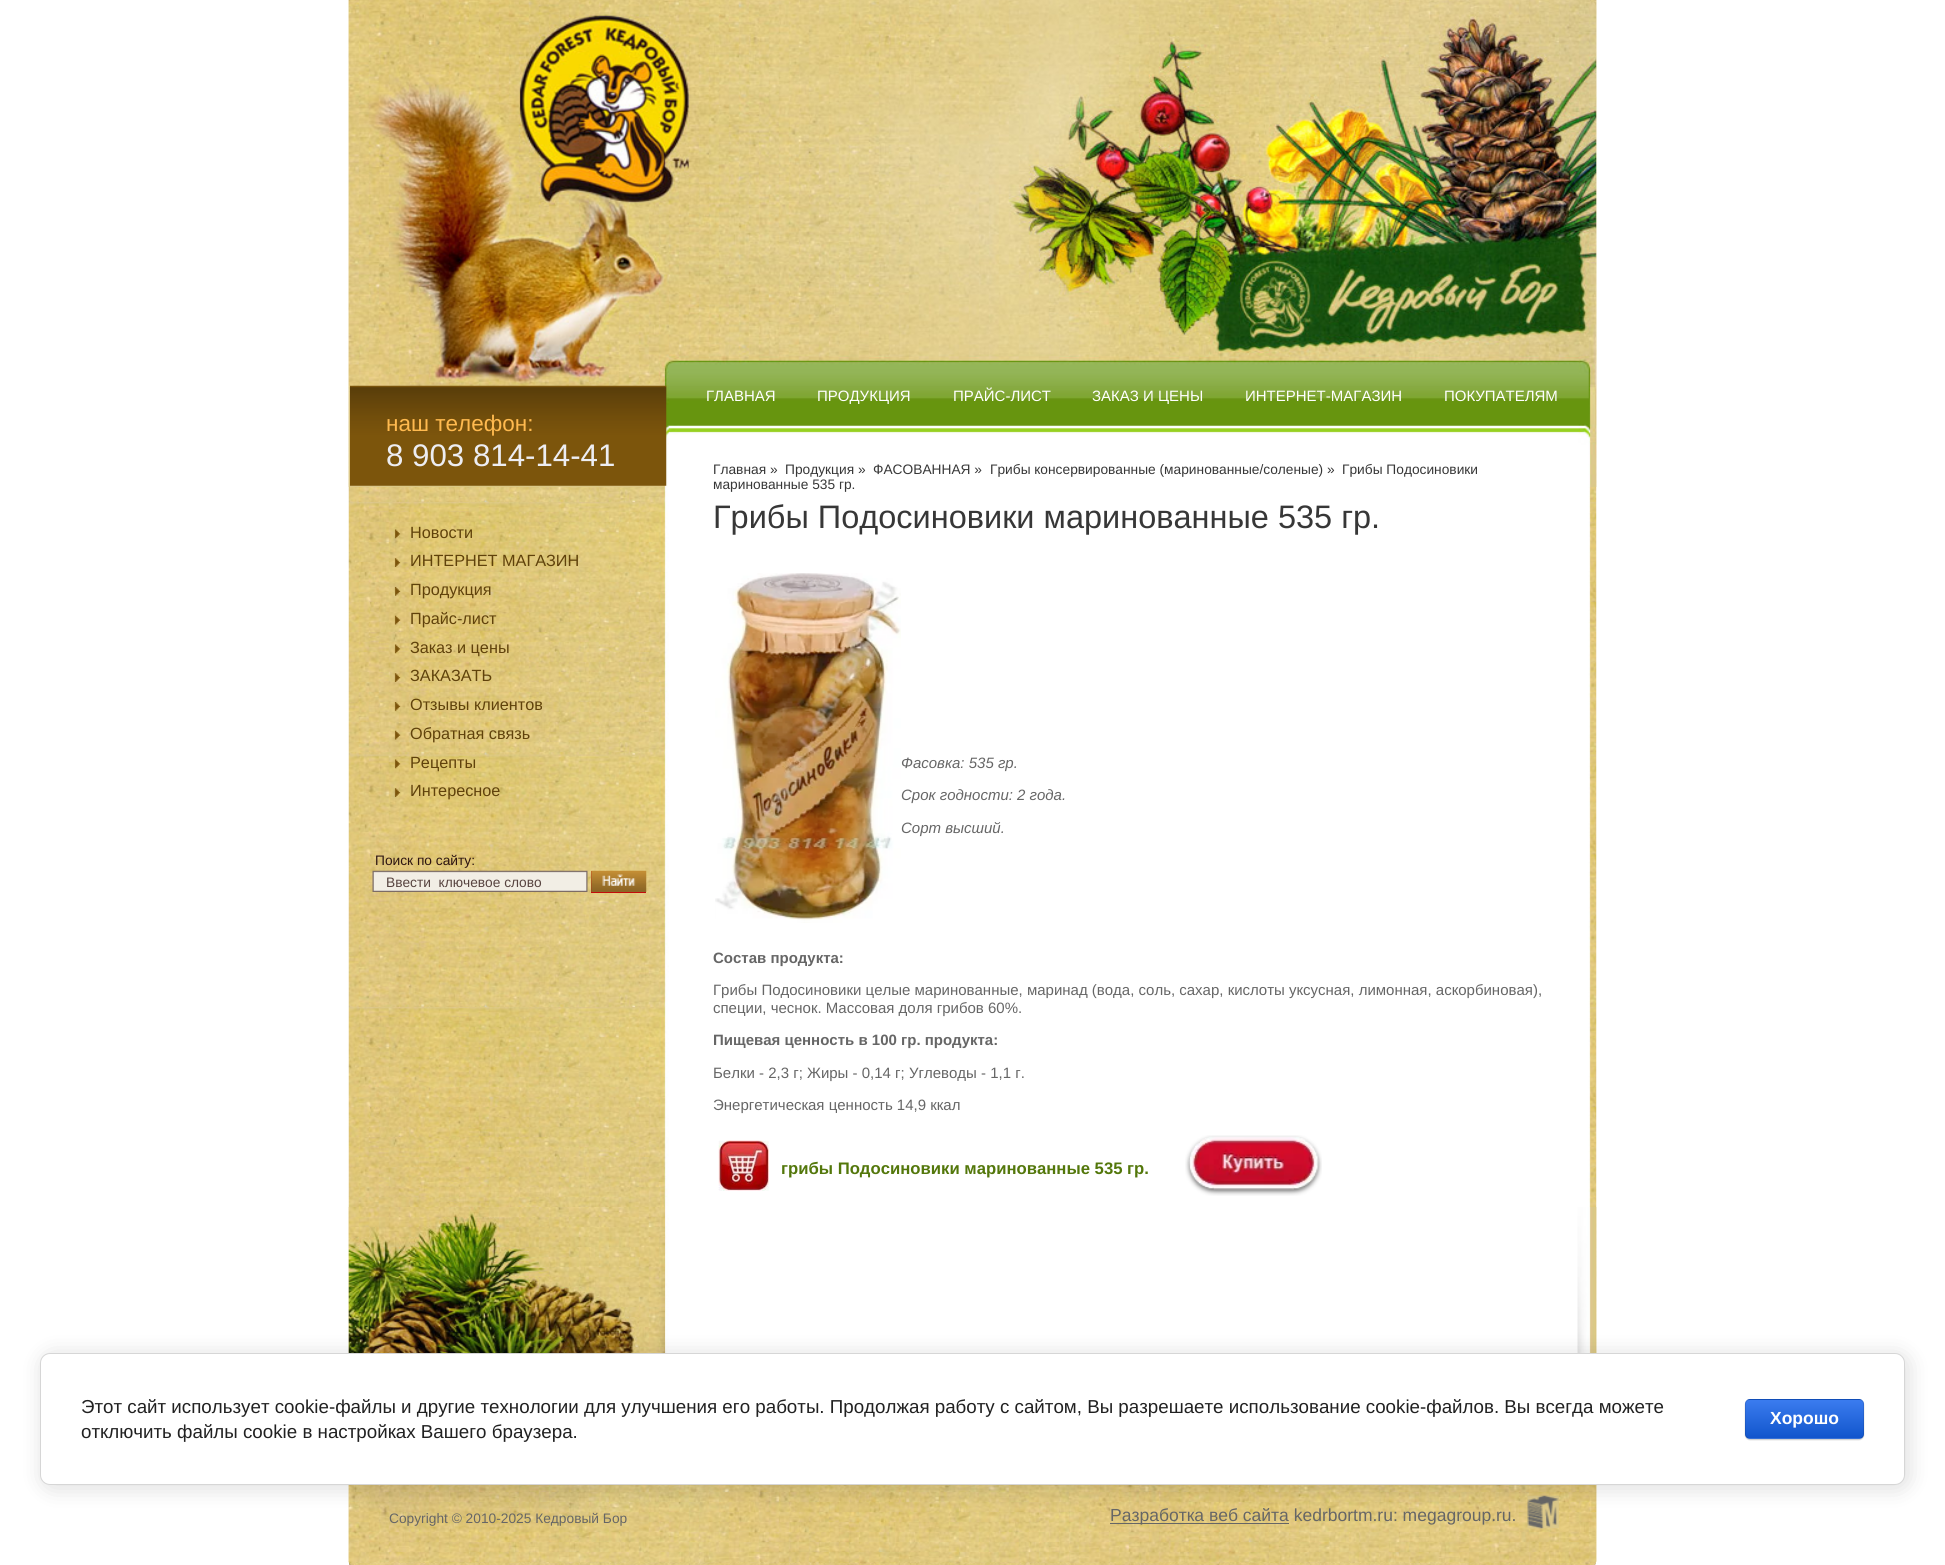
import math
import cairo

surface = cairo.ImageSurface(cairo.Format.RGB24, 1945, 1565)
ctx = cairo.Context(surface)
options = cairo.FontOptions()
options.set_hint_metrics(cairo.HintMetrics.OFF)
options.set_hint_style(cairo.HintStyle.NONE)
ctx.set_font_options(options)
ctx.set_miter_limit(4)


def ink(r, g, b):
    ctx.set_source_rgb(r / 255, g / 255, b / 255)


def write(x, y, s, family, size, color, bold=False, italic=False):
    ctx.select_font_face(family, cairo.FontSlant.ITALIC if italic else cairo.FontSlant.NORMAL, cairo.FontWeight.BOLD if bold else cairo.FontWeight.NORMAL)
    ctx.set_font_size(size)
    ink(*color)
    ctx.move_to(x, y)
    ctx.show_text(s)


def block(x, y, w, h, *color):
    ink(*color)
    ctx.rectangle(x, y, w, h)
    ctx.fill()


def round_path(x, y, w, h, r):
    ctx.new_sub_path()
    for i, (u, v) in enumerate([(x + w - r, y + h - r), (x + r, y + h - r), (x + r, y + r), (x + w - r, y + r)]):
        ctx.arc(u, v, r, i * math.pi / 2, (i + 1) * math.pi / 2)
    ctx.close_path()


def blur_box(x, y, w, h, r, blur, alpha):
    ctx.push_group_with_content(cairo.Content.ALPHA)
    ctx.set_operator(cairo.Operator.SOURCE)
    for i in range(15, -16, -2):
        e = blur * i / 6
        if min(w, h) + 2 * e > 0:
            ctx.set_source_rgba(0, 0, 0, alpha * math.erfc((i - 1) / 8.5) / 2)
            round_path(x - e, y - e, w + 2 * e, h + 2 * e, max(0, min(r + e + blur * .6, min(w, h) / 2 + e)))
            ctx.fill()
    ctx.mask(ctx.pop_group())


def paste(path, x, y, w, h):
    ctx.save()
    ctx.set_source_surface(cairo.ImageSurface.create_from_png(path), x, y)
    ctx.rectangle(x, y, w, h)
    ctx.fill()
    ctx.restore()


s1 = dict(family="Liberation Sans", size=22.5, color=(255, 186, 79))
s2 = dict(family="Liberation Sans", size=31.25, color=(237, 237, 242))
s3 = dict(family="Liberation Sans", size=16.25, color=(96, 66, 11))
s4 = dict(family="Liberation Sans", size=13.75, color=(45, 21, 18))
s5 = dict(family="Liberation Sans", size=13.75, color=(87, 67, 63))
s6 = dict(family="Liberation Sans", size=15, color=(255, 255, 255))
s7 = dict(family="Liberation Sans", size=13.75, color=(55, 55, 55))
s8 = dict(family="Liberation Sans", size=32.5, color=(55, 55, 55))
s9 = dict(family="Liberation Sans", size=15, color=(102, 102, 102), italic=True)
s10 = dict(family="Liberation Sans", size=15, color=(102, 102, 102), bold=True)
s11 = dict(family="Liberation Sans", size=15, color=(102, 102, 102))
s12 = dict(family="Liberation Sans", size=16.7, color=(83, 119, 11), bold=True)
s13 = dict(family="Liberation Sans", size=18.75, color=(33, 33, 33))
s14 = dict(family="Liberation Sans", size=17.5, color=(255, 255, 255), bold=True)
s15 = dict(family="Liberation Sans", size=13.75, color=(102, 102, 102))
s16 = dict(family="Liberation Sans", size=17.5, color=(102, 102, 102))

ink(255, 255, 255)
ctx.paint()
paste("pic1.png", 348, 0, 1249, 1562)
paste("pic2.png", 348, 0, 1249, 487)
paste("pic3.png", 350, 385, 317, 101)
write(386, 431, "наш телефон:", **s1)
write(386, 466, "8 903 814-14-41", **s2)
paste("pic4.png", 394, 529, 7, 10)
write(410, 538, "Новости", **s3)
paste("pic5.png", 394, 558, 7, 9)
write(410, 566, "ИНТЕРНЕТ МАГАЗИН", **s3)
paste("pic6.png", 394, 587, 7, 9)
write(410, 595, "Продукция", **s3)
paste("pic7.png", 394, 615, 7, 10)
write(410, 624, "Прайс-лист", **s3)
paste("pic8.png", 394, 644, 7, 10)
write(410, 653, "Заказ и цены", **s3)
paste("pic9.png", 394, 673, 7, 9)
write(410, 681, "ЗАКАЗАТЬ", **s3)
paste("pic10.png", 394, 702, 7, 9)
write(410, 710, "Отзывы клиентов", **s3)
paste("pic11.png", 394, 730, 7, 10)
write(410, 739, "Обратная связь", **s3)
paste("pic12.png", 394, 759, 7, 10)
write(410, 768, "Рецепты", **s3)
paste("pic13.png", 394, 788, 7, 9)
write(410, 796, "Интересное", **s3)
write(375, 865, "Поиск по сайту:", **s4)
paste("pic14.png", 372, 870, 216, 22)
write(386, 887, "Ввести  ключевое слово", **s5)
block(591, 871, 55, 22, 196, 11, 11)
paste("pic15.png", 591, 870, 56, 22)
write(706, 401, "ГЛАВНАЯ", **s6)
write(817, 401, "ПРОДУКЦИЯ", **s6)
write(953, 401, "ПРАЙС-ЛИСТ", **s6)
write(1092, 401, "ЗАКАЗ И ЦЕНЫ", **s6)
write(1245, 401, "ИНТЕРНЕТ-МАГАЗИН", **s6)
write(1444, 401, "ПОКУПАТЕЛЯМ", **s6)
write(713, 474, "Главная »", **s7)
write(785, 474, "Продукция »", **s7)
write(873, 474, "ФАСОВАННАЯ »", **s7)
write(990, 474, "Грибы консервированные (маринованные/соленые) »", **s7)
write(1342, 474, "Грибы Подосиновики", **s7)
write(713, 489, "маринованные 535 гр.", **s7)
write(713, 528, "Грибы Подосиновики маринованные 535 гр.", **s8)
paste("pic16.png", 715, 573, 186, 350)
write(901, 768, "Фасовка: 535 гр.", **s9)
write(901, 800, "Срок годности: 2 года.", **s9)
write(901, 833, "Сорт высший.", **s9)
write(713, 963, "Состав продукта:", **s10)
write(713, 995, "Грибы Подосиновики целые маринованные, маринад (вода, соль, сахар, кислоты уксусная, лимонная, аскорбиновая),", **s11)
write(713, 1013, "специи, чеснок. Массовая доля грибов 60%.", **s11)
write(713, 1045, "Пищевая ценность в 100 гр. продукта:", **s10)
write(713, 1078, "Белки - 2,3 г; Жиры - 0,14 г; Углеводы - 1,1 г.", **s11)
write(713, 1110, "Энергетическая ценность 14,9 ккал", **s11)
paste("pic17.png", 718, 1140, 51, 51)
write(781, 1174, "грибы Подосиновики маринованные 535 гр.", **s12)
paste("pic18.png", 1185, 1135, 137, 61)
paste("pic19.png", 348, 1485, 1249, 80)
paste("pic20.png", 348, 1207, 317, 146)
paste("pic21.png", 1577, 1207, 20, 146)
paste("pic22.png", 1527, 1495, 32, 34)
ink(0, 0, 0)
blur_box(43, 1355, 1865, 133, 10, 11, 0.14)
ink(255, 255, 255)
round_path(40.5, 1353.5, 1864, 131, 9.5)
ctx.fill_preserve()
ink(214, 214, 214)
ctx.set_line_width(1)
ctx.stroke()
write(81, 1413, "Этот сайт использует cookie-файлы и другие технологии для улучшения его работы. Продолжая работу с сайтом, Вы разрешаете использование cookie-файлов. Вы всегда можете", **s13)
write(81, 1438, "отключить файлы cookie в настройках Вашего браузера.", **s13)
ink(0, 0, 0)
blur_box(1745, 1400, 119, 40, 5, 0.5, 0.2)
ctx.save()
round_path(1745, 1399, 119, 40, 5)
ctx.clip()
gradient = cairo.LinearGradient(1804, 1363, 1804, 1400)
gradient.add_color_stop_rgba(0, 0.231, 0.486, 0.937, 1)
gradient.add_color_stop_rgba(1, 0.067, 0.333, 0.8, 1)
ctx.set_source(gradient)
ctx.rectangle(1745, 1399, 119, 1)
ctx.fill()
gradient = cairo.LinearGradient(1804, 1400, 1804, 1438)
gradient.add_color_stop_rgba(0, 0.231, 0.486, 0.937, 1)
gradient.add_color_stop_rgba(1, 0.067, 0.333, 0.8, 1)
ctx.set_source(gradient)
ctx.rectangle(1745, 1400, 119, 38)
ctx.fill()
gradient = cairo.LinearGradient(1804, 1438, 1804, 1475)
gradient.add_color_stop_rgba(0, 0.231, 0.486, 0.937, 1)
gradient.add_color_stop_rgba(1, 0.067, 0.333, 0.8, 1)
ctx.set_source(gradient)
ctx.rectangle(1745, 1438, 119, 1)
ctx.fill()
ctx.restore()
round_path(1745.5, 1399.5, 118, 39, 4.5)
ctx.set_source_rgba(0, 0, 0, 0.1)
ctx.stroke()
write(1770, 1424, "Хорошо", **s14)
write(389, 1523, "Copyright © 2010-2025 Кедровый Бор", **s15)
block(1110, 1523, 179, 1, 102, 102, 102)
write(1110, 1521, "Разработка веб сайта kedrbortm.ru: megagroup.ru.", **s16)
surface.write_to_png("screenshot.png")
